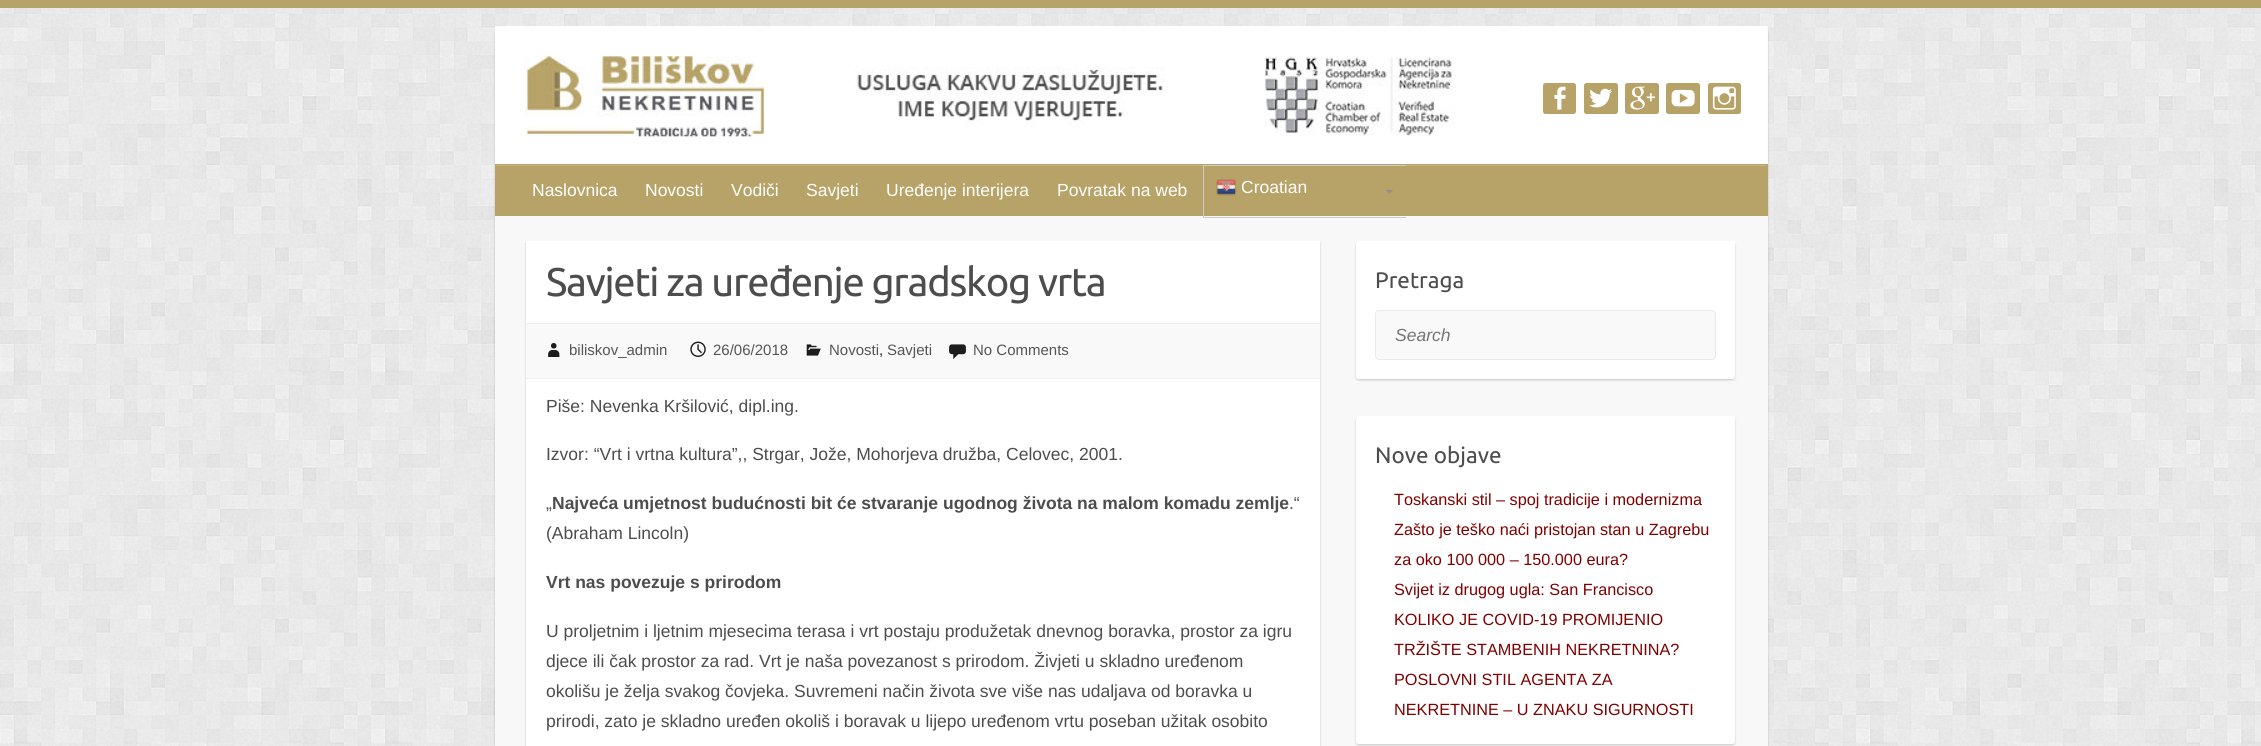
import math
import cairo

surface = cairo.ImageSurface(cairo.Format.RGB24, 2261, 746)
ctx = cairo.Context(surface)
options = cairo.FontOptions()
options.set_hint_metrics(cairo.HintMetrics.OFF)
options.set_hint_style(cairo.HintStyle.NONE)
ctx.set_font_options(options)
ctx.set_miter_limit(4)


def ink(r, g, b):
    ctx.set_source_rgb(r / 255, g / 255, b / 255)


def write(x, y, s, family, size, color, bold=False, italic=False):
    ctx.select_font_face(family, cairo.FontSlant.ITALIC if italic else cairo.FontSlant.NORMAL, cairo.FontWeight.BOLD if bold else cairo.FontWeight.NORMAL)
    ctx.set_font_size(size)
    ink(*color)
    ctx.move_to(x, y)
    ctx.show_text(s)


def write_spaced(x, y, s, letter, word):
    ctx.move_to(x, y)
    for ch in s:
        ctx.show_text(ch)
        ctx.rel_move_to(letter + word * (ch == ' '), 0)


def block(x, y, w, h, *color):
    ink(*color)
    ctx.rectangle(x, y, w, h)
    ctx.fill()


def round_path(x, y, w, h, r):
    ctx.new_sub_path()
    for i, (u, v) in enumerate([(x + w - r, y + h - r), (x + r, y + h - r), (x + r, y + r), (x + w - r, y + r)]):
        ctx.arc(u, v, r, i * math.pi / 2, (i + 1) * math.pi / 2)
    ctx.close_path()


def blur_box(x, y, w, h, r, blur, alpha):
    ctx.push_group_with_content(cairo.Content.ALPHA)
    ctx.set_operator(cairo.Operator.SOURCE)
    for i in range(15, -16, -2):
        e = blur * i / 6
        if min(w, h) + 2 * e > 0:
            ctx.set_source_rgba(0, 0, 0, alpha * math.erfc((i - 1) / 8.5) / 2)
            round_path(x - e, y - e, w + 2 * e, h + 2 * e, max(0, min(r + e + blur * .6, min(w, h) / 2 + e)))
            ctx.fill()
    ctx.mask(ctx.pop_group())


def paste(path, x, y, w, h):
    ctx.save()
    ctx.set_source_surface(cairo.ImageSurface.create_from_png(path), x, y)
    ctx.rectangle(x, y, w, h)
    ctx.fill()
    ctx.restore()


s1 = dict(family="Liberation Sans", size=17.5, color=(255, 255, 255))
s2 = dict(family="Liberation Sans", size=15, color=(85, 85, 85))
s3 = dict(family="Liberation Sans", size=15, color=(29, 29, 29))
s4 = dict(family="Liberation Sans", size=17.5, color=(77, 77, 77))
s5 = dict(family="Liberation Sans", size=17.5, color=(77, 77, 77), bold=True)
s6 = dict(family="Ubuntu", size=22.5, color=(77, 77, 77))
s7 = dict(family="Liberation Sans", size=17.5, color=(117, 117, 117), italic=True)
s8 = dict(family="Liberation Sans", size=16.25, color=(128, 0, 0))

ink(255, 255, 255)
ctx.paint()
paste("pic1.png", 0, 8, 2261, 738)
block(0, 0, 2261, 8, 183, 163, 104)
ink(0, 0, 0)
blur_box(495, 28, 1273, 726, 5, 1, 0.2)
ink(248, 248, 248)
round_path(495, 26, 1273, 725, 5)
ctx.fill()
paste("pic2.png", 495, 26, 1273, 138)
ink(183, 163, 104)
round_path(1543, 83, 33, 31, 2.5)
ctx.fill()
paste("pic3.png", 1554, 86, 12, 24)
round_path(1584, 83, 34, 31, 2.5)
ctx.fill()
paste("pic4.png", 1589, 88, 23, 20)
round_path(1625, 83, 34, 31, 2.5)
ctx.fill()
paste("pic5.png", 1630, 86, 25, 24)
round_path(1666, 83, 34, 31, 2.5)
ctx.fill()
paste("pic6.png", 1671, 89, 24, 18)
round_path(1708, 83, 33, 31, 2.5)
ctx.fill()
paste("pic7.png", 1712, 86, 24, 24)
block(495, 164, 1273, 52, 183, 163, 104)
block(496, 165, 1270, 1, 197, 181, 134)
write(532, 196, "Naslovnica", **s1)
write(645, 196, "Novosti", **s1)
write(731, 196, "Vodiči", **s1)
write(806, 196, "Savjeti", **s1)
write(886, 196, "Uređenje interijera", **s1)
write(1057, 196, "Povratak na web", **s1)
paste("pic8.png", 1386, 190, 7, 4)
ctx.save()
ctx.rectangle(1203, 165, 203, 53)
ctx.clip()
ctx.rectangle(1203.5, 165.5, 217, 52)
ink(204, 204, 204)
ctx.set_line_width(1)
ctx.stroke()
ctx.restore()
paste("pic9.png", 1216, 179, 21, 17)
write(1241, 193, "Croatian", **s1)
ink(0, 0, 0)
blur_box(526, 243, 794, 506, 0, 1, 0.2)
block(526, 241, 794, 505, 255, 255, 255)
ctx.select_font_face("Ubuntu")
ctx.set_font_size(40)
ink(77, 77, 77)
write_spaced(546, 296, "Savjeti za uređenje gradskog vrta", -1.25, 0)
block(526, 324, 794, 54, 249, 249, 249)
block(526, 323, 794, 1, 240, 240, 240)
block(526, 378, 794, 1, 240, 240, 240)
paste("pic10.png", 548, 343, 12, 14)
write(569, 355, "biliskov_admin", **s2)
paste("pic11.png", 690, 341, 16, 16)
write(713, 355, "26/06/2018", **s2)
paste("pic12.png", 806, 344, 15, 12)
write(829, 355, "Novosti", **s2)
write(879, 355, ",", **s3)
write(887, 355, "Savjeti", **s2)
paste("pic13.png", 949, 344, 17, 15)
write(973, 355, "No Comments", **s2)
write(546, 412, "Piše: Nevenka Kršilović, dipl.ing.", **s4)
write(546, 460, "Izvor: “Vrt i vrtna kultura”,, Strgar, Jože, Mohorjeva družba, Celovec, 2001.", **s4)
write(552, 509, "Najveća umjetnost budućnosti bit će stvaranje ugodnog života na malom komadu zemlje", **s5)
write(1289, 509, ".“", **s4)
write(546, 509, "„", **s4)
write(546, 539, "(Abraham Lincoln)", **s4)
write(546, 588, "Vrt nas povezuje s prirodom", **s5)
write(546, 637, "U proljetnim i ljetnim mjesecima terasa i vrt postaju produžetak dnevnog boravka, prostor za igru", **s4)
write(546, 667, "djece ili čak prostor za rad. Vrt je naša povezanost s prirodom. Živjeti u skladno uređenom", **s4)
write(546, 697, "okolišu je želja svakog čovjeka. Suvremeni način života sve više nas udaljava od boravka u", **s4)
write(546, 727, "prirodi, zato je skladno uređen okoliš i boravak u lijepo uređenom vrtu poseban užitak osobito", **s4)
ink(0, 0, 0)
blur_box(1356, 243, 379, 137, 2.5, 1, 0.2)
ink(255, 255, 255)
round_path(1356, 241, 379, 138, 2.5)
ctx.fill()
write(1375, 288, "Pretraga", **s6)
ink(249, 249, 249)
round_path(1375.5, 310.5, 340, 49, 3.5)
ctx.fill_preserve()
ink(234, 234, 234)
ctx.set_line_width(1)
ctx.stroke()
write(1395, 341, "Search", **s7)
ink(0, 0, 0)
blur_box(1356, 418, 379, 327, 2.5, 1, 0.2)
ink(255, 255, 255)
round_path(1356, 416, 379, 328, 2.5)
ctx.fill()
write(1375, 463, "Nove objave", **s6)
write(1394, 505, "Toskanski stil – spoj tradicije i modernizma", **s8)
write(1394, 535, "Zašto je teško naći pristojan stan u Zagrebu", **s8)
write(1394, 565, "za oko 100 000 – 150.000 eura?", **s8)
write(1394, 595, "Svijet iz drugog ugla: San Francisco", **s8)
write(1394, 625, "KOLIKO JE COVID-19 PROMIJENIO", **s8)
write(1394, 655, "TRŽIŠTE STAMBENIH NEKRETNINA?", **s8)
write(1394, 685, "POSLOVNI STIL AGENTA ZA", **s8)
write(1394, 715, "NEKRETNINE – U ZNAKU SIGURNOSTI", **s8)
surface.write_to_png("screenshot.png")
